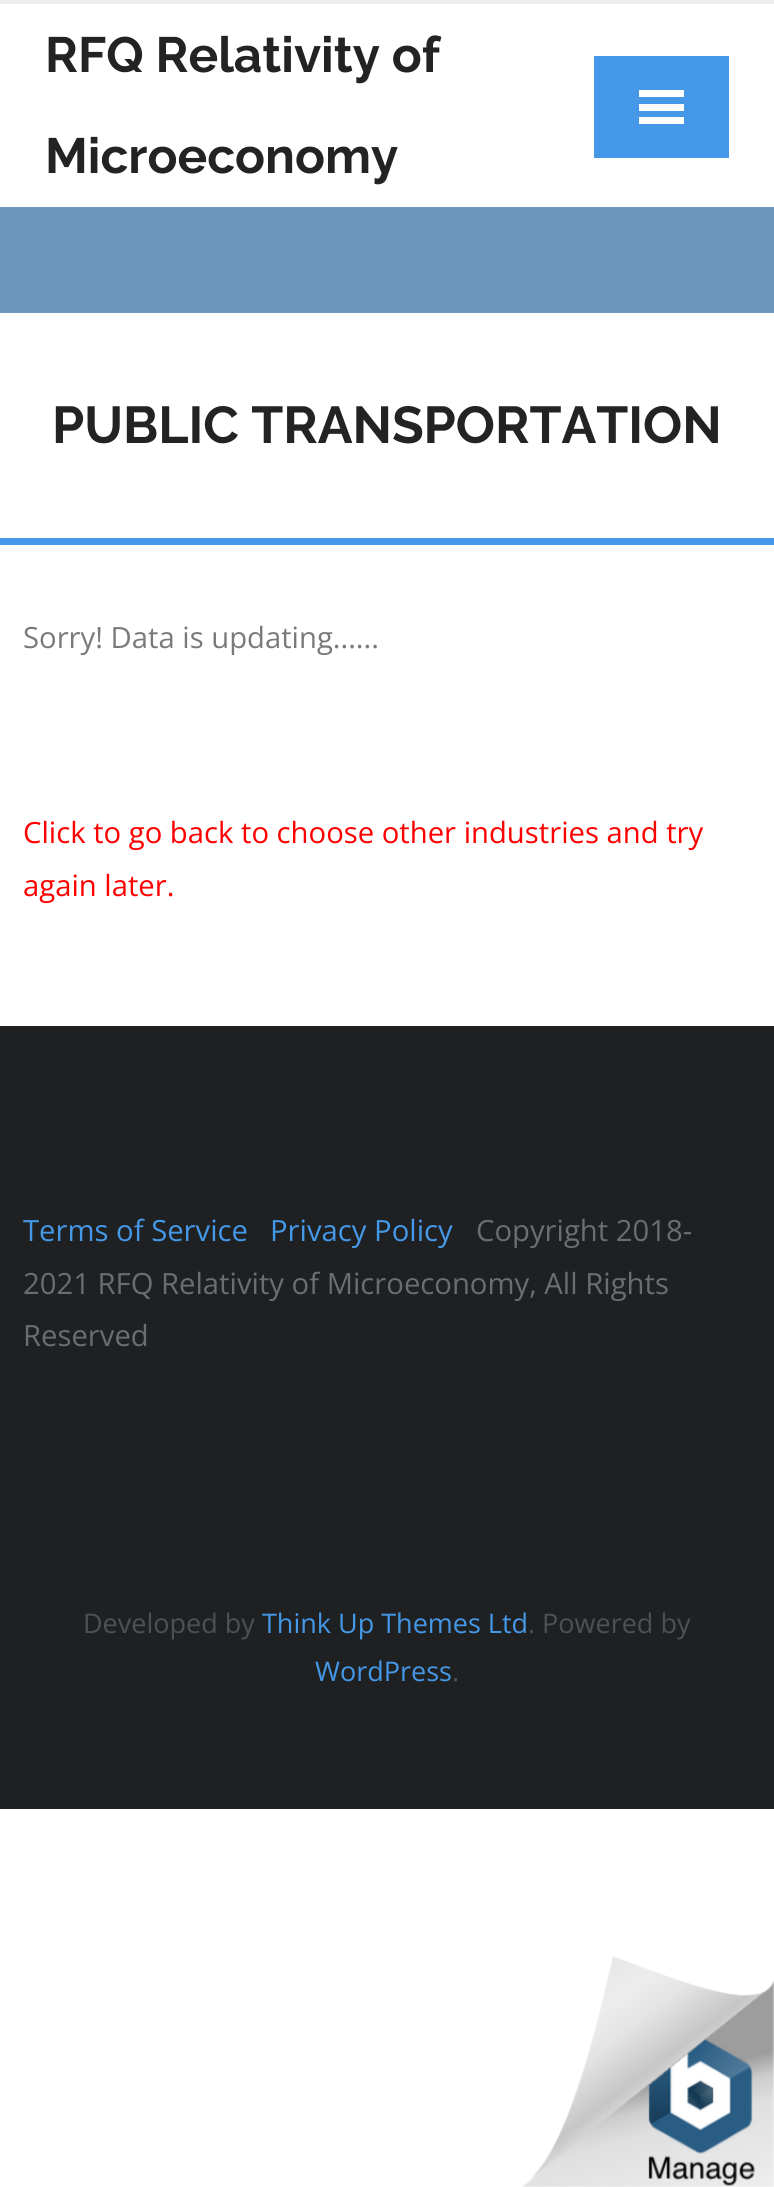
import math
import cairo

surface = cairo.ImageSurface(cairo.Format.RGB24, 774, 2187)
ctx = cairo.Context(surface)
options = cairo.FontOptions()
options.set_hint_metrics(cairo.HintMetrics.OFF)
options.set_hint_style(cairo.HintStyle.NONE)
ctx.set_font_options(options)
ctx.set_miter_limit(4)


def ink(r, g, b):
    ctx.set_source_rgb(r / 255, g / 255, b / 255)


def write(x, y, s, family, size, color, bold=False, italic=False):
    ctx.select_font_face(family, cairo.FontSlant.ITALIC if italic else cairo.FontSlant.NORMAL, cairo.FontWeight.BOLD if bold else cairo.FontWeight.NORMAL)
    ctx.set_font_size(size)
    ink(*color)
    ctx.move_to(x, y)
    ctx.show_text(s)


def block(x, y, w, h, *color):
    ink(*color)
    ctx.rectangle(x, y, w, h)
    ctx.fill()


def paste(path, x, y, w, h):
    ctx.save()
    ctx.set_source_surface(cairo.ImageSurface.create_from_png(path), x, y)
    ctx.rectangle(x, y, w, h)
    ctx.fill()
    ctx.restore()


s1 = dict(family="Raleway", size=49.5, color=(35, 35, 35), bold=True)
s2 = dict(family="Raleway", size=51.75, color=(35, 35, 35), bold=True)
s3 = dict(family="Open Sans", size=29.25, color=(122, 122, 122))
s4 = dict(family="Open Sans", size=29.25, color=(255, 0, 0))
s5 = dict(family="Open Sans", size=29.25, color=(68, 152, 231))
s6 = dict(family="Open Sans", size=29.25, color=(105, 110, 113))
s7 = dict(family="Open Sans", size=27, color=(76, 81, 84))
s8 = dict(family="Open Sans", size=27, color=(68, 152, 231))

ink(255, 255, 255)
ctx.paint()
block(0, 0, 774, 4, 238, 238, 238)
write(45, 72, "RFQ Relativity of", **s1)
write(45, 173, "Microeconomy", **s1)
block(594, 56, 135, 102, 68, 152, 231)
block(639, 90, 45, 7, 255, 255, 255)
block(639, 104, 45, 7, 255, 255, 255)
block(639, 117, 45, 7, 255, 255, 255)
block(0, 207, 774, 106, 109, 150, 191)
block(0, 538, 774, 7, 68, 152, 231)
write(52, 443, "PUBLIC TRANSPORTATION", **s2)
write(23, 648, "Sorry! Data is updating......", **s3)
write(23, 843, "Click to go back to choose other industries and try", **s4)
write(23, 896, "again later.", **s4)
block(0, 1026, 774, 783, 30, 32, 33)
write(23, 1241, "Terms of Service", **s5)
write(270, 1241, "Privacy Policy", **s5)
write(476, 1241, "Copyright 2018-", **s6)
write(23, 1294, "2021 RFQ Relativity of Microeconomy, All Rights", **s6)
write(23, 1346, "Reserved", **s6)
write(83, 1633, "Developed by", **s7)
write(262, 1633, "Think Up Themes Ltd", **s8)
write(528, 1633, ". Powered by", **s7)
write(315, 1681, "WordPress", **s8)
write(452, 1681, ".", **s7)
paste("pic1.png", 522, 1956, 252, 231)
surface.write_to_png("screenshot.png")
